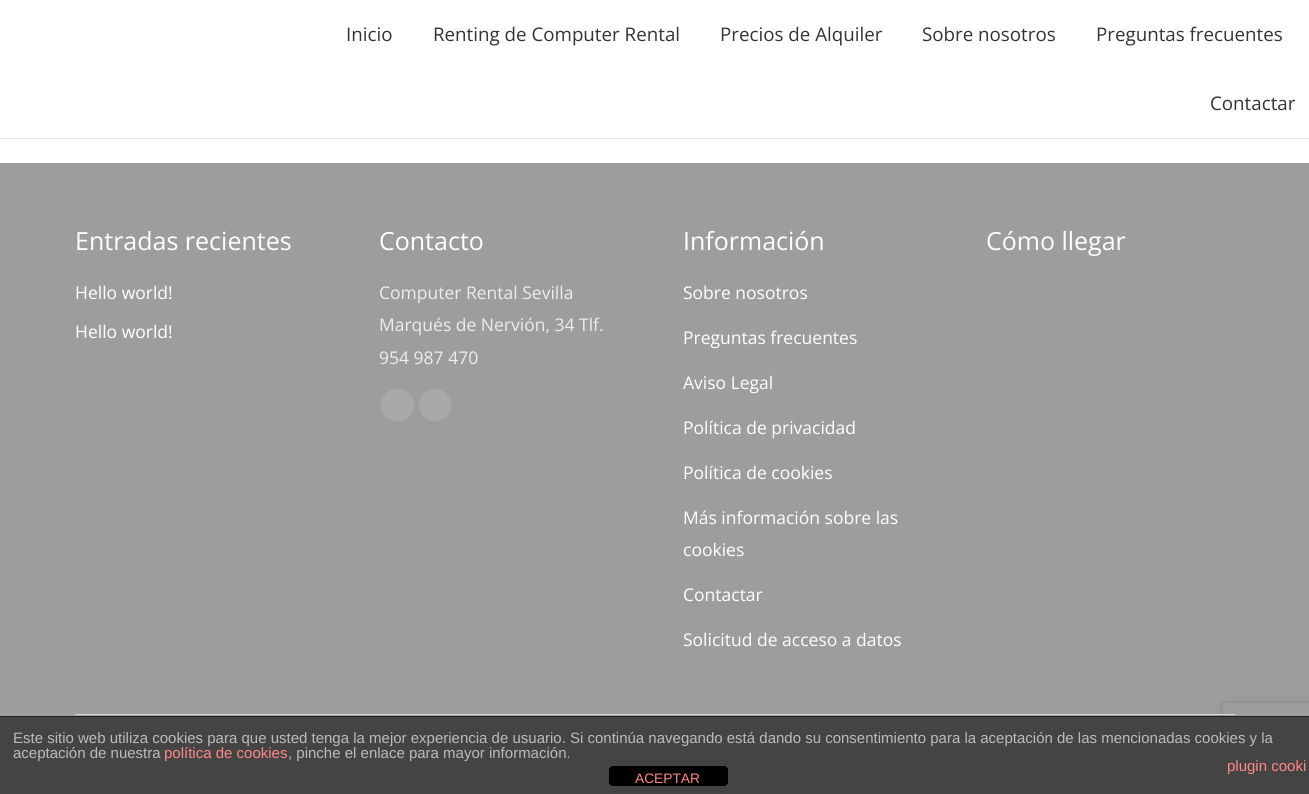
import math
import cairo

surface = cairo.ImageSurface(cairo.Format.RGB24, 1309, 794)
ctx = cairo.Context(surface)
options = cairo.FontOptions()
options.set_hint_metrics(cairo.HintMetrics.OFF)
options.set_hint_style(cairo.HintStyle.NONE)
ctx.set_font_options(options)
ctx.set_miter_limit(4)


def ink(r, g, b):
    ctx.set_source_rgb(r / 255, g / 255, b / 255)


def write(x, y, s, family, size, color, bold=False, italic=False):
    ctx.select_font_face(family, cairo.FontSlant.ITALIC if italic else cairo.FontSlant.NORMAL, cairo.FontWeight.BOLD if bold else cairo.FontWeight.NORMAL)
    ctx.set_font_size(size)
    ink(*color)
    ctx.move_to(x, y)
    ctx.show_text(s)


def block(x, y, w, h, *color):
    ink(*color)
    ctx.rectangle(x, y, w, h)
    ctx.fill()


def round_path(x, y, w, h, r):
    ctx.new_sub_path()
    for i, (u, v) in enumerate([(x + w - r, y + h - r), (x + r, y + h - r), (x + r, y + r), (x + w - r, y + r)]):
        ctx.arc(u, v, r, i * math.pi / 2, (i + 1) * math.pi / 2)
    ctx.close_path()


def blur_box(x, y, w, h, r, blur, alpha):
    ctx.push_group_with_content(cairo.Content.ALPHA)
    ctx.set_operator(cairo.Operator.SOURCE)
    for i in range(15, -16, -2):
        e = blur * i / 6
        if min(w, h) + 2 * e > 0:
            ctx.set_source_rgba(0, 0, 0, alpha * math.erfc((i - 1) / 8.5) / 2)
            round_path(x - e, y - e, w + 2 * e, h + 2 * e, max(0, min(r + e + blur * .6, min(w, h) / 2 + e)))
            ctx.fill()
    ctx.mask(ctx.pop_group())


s1 = dict(family="Open Sans", size=18.75, color=(51, 51, 51))
s2 = dict(family="Open Sans", size=25, color=(255, 255, 255))
s3 = dict(family="Open Sans", size=17.5, color=(255, 255, 255))
s4 = dict(family="Open Sans", size=17.5, color=(237, 237, 237))
s5 = dict(family="Liberation Sans", size=15, color=(187, 187, 187))
s6 = dict(family="Liberation Sans", size=15, color=(255, 136, 136))
s7 = dict(family="Liberation Sans", size=13.75, color=(255, 136, 136))

ink(255, 255, 255)
ctx.paint()
block(0, 138, 1309, 1, 232, 232, 232)
write(346, 41, "Inicio", **s1)
write(433, 41, "Renting de Computer Rental", **s1)
write(720, 41, "Precios de Alquiler", **s1)
write(922, 41, "Sobre nosotros", **s1)
write(1096, 41, "Preguntas frecuentes", **s1)
write(1210, 110, "Contactar", **s1)
block(0, 163, 1309, 553, 157, 157, 157)
write(75, 250, "Entradas recientes", **s2)
write(75, 299, "Hello world!", **s3)
write(75, 338, "Hello world!", **s3)
write(379, 250, "Contacto", **s2)
write(379, 299, "Computer Rental Sevilla", **s4)
write(379, 331, "Marqués de Nervión, 34 Tlf.", **s4)
write(379, 364, "954 987 470", **s4)
ink(169, 169, 169)
round_path(381, 389, 33, 32, 16)
ctx.fill()
ctx.arc(435, 405, 16, 0, 2 * math.pi)
ctx.fill()
write(683, 250, "Información", **s2)
write(683, 299, "Sobre nosotros", **s3)
write(683, 344, "Preguntas frecuentes", **s3)
write(683, 389, "Aviso Legal", **s3)
write(683, 434, "Política de privacidad", **s3)
write(683, 479, "Política de cookies", **s3)
write(683, 524, "Más información sobre las", **s3)
write(683, 556, "cookies", **s3)
write(683, 601, "Contactar", **s3)
write(683, 646, "Solicitud de acceso a datos", **s3)
write(986, 250, "Cómo llegar", **s2)
ctx.save()
ctx.set_fill_rule(cairo.FillRule.EVEN_ODD)
ctx.new_path()
ctx.move_to(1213, 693)
ctx.line_to(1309, 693)
ctx.line_to(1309, 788)
ctx.line_to(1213, 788)
ctx.close_path()
ctx.move_to(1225.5, 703)
ctx.line_to(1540.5, 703)
ctx.curve_to(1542, 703, 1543, 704, 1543, 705.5)
ctx.line_to(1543, 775.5)
ctx.curve_to(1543, 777, 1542, 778, 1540.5, 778)
ctx.line_to(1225.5, 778)
ctx.curve_to(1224, 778, 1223, 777, 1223, 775.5)
ctx.line_to(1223, 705.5)
ctx.curve_to(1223, 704, 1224, 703, 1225.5, 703)
ctx.close_path()
ctx.clip()
ink(128, 128, 128)
blur_box(1223, 703, 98, 75, 2.5, 3, 1)
ctx.restore()
block(75, 714, 1160, 1, 214, 214, 214)
block(0, 717, 1309, 77, 68, 68, 68)
block(0, 716, 1309, 1, 34, 34, 34)
write(13, 743, "Este sitio web utiliza cookies para que usted tenga la mejor experiencia de usuario. Si continúa navegando está dando su consentimiento para la aceptación de las mencionadas cookies y la", **s5)
write(13, 758, "aceptación de nuestra", **s5)
write(164, 758, "política de cookies", **s6)
write(288, 758, ", pinche el enlace para mayor información.", **s5)
write(1227, 771, "plugin cooki", **s6)
ink(0, 0, 0)
round_path(609, 766, 119, 20, 4)
ctx.fill()
write(635, 783, "ACEPTAR", **s7)
surface.write_to_png("screenshot.png")
